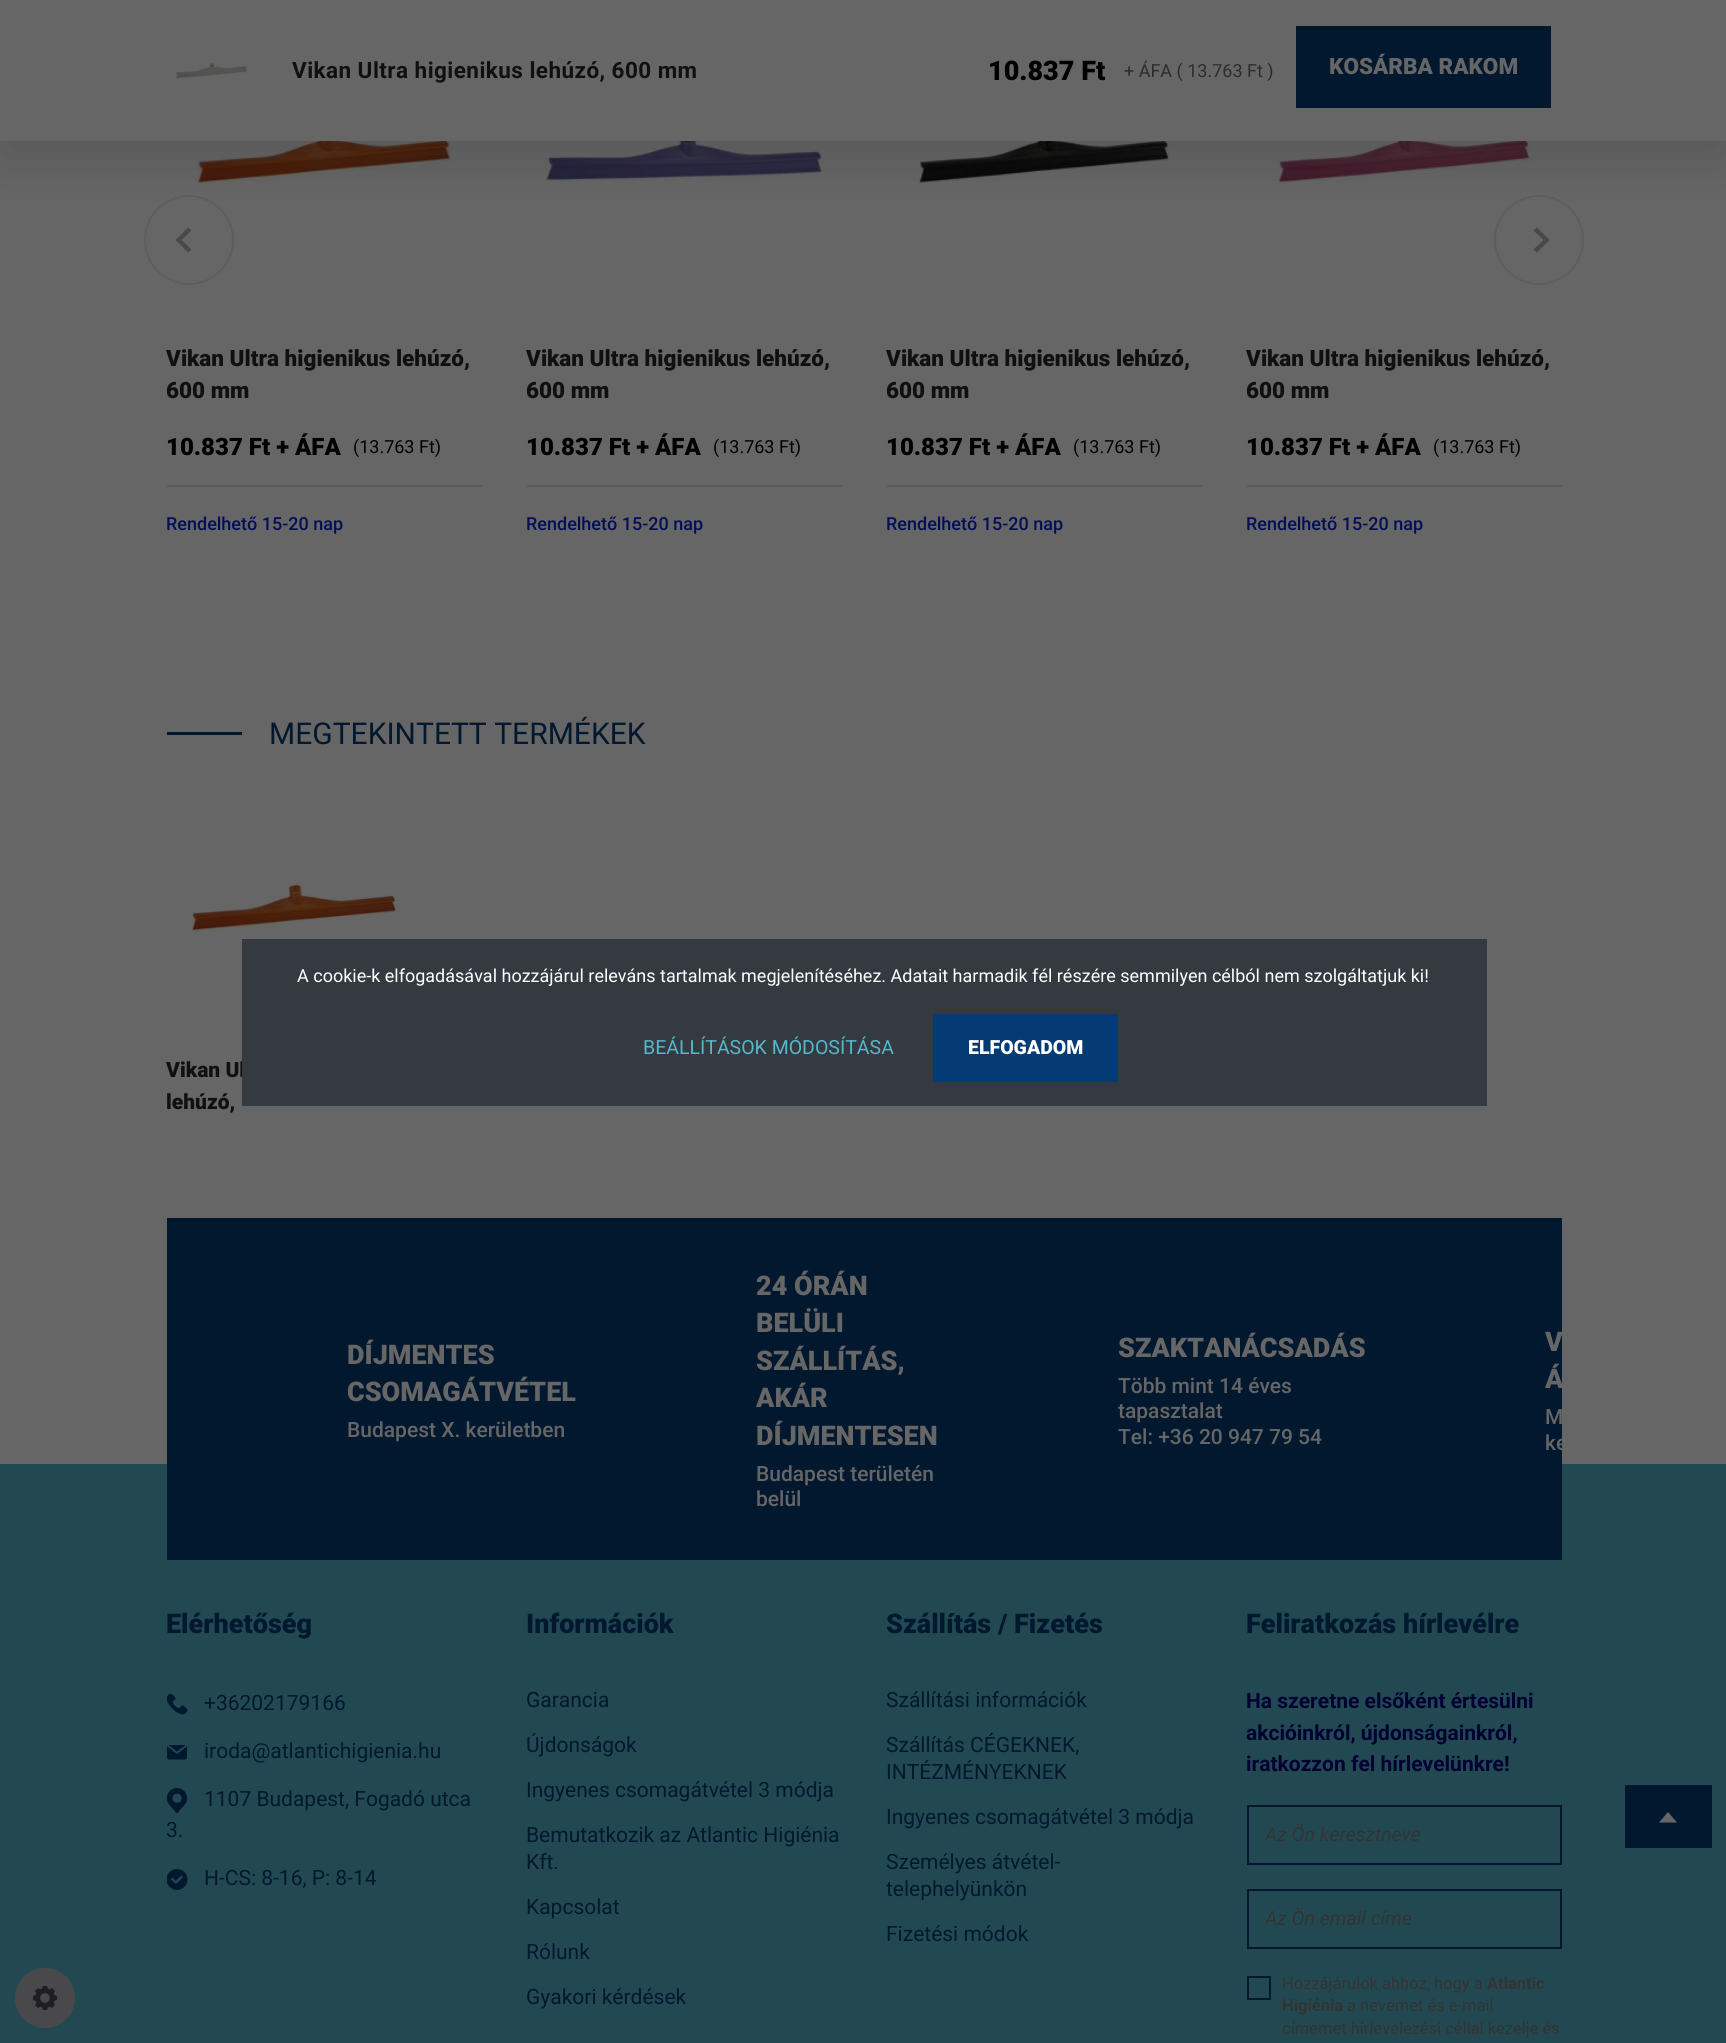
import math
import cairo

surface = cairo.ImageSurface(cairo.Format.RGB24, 1726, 2043)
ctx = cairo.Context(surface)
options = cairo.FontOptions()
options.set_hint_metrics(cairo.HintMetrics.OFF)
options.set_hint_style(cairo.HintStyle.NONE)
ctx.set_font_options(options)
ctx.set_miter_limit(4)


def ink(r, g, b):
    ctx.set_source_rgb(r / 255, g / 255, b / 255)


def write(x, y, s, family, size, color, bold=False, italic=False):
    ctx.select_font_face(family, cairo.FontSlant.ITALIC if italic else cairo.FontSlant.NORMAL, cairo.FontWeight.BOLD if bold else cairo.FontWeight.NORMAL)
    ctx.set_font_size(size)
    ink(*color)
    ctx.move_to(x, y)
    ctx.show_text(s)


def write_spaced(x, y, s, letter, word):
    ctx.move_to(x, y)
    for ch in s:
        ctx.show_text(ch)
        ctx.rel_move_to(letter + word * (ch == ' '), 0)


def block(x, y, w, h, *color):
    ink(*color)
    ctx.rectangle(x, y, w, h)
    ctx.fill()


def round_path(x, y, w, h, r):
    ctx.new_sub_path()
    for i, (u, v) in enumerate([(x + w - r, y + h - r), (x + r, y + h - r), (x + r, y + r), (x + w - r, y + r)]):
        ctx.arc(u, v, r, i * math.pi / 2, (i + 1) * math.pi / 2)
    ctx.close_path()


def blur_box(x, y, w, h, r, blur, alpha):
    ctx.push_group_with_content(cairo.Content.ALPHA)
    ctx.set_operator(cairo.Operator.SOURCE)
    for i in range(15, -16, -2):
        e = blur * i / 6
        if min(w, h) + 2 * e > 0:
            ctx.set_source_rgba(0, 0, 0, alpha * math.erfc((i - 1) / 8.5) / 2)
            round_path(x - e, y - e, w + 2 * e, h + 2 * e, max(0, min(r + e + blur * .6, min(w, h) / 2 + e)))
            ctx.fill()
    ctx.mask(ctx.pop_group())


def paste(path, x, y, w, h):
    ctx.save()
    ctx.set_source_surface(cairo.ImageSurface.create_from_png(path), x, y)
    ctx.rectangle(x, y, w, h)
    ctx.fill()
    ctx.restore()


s1 = dict(family="Roboto Black", size=27, color=(0, 0, 0))
s2 = dict(family="Roboto", size=18, color=(46, 44, 46))
s3 = dict(family="Roboto Black", size=22.5, color=(102, 102, 102))
s4 = dict(family="Roboto Black", size=22.5, color=(16, 16, 16))
s5 = dict(family="Roboto Black", size=24, color=(0, 0, 0))
s6 = dict(family="Roboto", size=18, color=(0, 0, 0))
s7 = dict(family="Roboto Medium", size=18, color=(2, 15, 88))
s8 = dict(family="Roboto", size=30, color=(2, 24, 47))
s9 = dict(family="Roboto Black", size=21, color=(16, 16, 16))
s10 = dict(family="Roboto Black", size=27, color=(102, 102, 102))
s11 = dict(family="Roboto Medium", size=21, color=(102, 102, 102))
s12 = dict(family="Roboto Black", size=27, color=(2, 24, 47))
s13 = dict(family="Roboto", size=21, color=(2, 24, 47))
s14 = dict(family="Roboto", size=21, color=(0, 0, 51), bold=True)
s15 = dict(family="Roboto", size=19.5, color=(51, 51, 51), italic=True)
s16 = dict(family="Roboto", size=16.5, color=(51, 51, 51))
s17 = dict(family="Roboto", size=16.5, color=(51, 51, 51), bold=True)
s18 = dict(family="Roboto", size=18, color=(255, 255, 255))
s19 = dict(family="Roboto", size=19.5, color=(86, 182, 204))
s20 = dict(family="Roboto Black", size=19.5, color=(255, 255, 255))

ink(102, 102, 102)
ctx.paint()
ctx.arc(189, 240, 44, 0, 2 * math.pi)
ink(93, 94, 96)
ctx.stroke()
ink(73, 72, 74)
ctx.new_path()
ctx.move_to(188, 252.5)
ctx.line_to(175.5, 240)
ctx.line_to(178.5, 237)
ctx.line_to(191.5, 249.5)
ctx.close_path()
ctx.fill()
ctx.new_path()
ctx.move_to(178.5, 243)
ctx.line_to(175.5, 240)
ctx.line_to(188, 227.5)
ctx.line_to(191.5, 230.5)
ctx.close_path()
ctx.fill()
ctx.arc(1539, 240, 44, 0, 2 * math.pi)
ink(93, 94, 96)
ctx.stroke()
ink(73, 72, 74)
ctx.new_path()
ctx.move_to(1533.5, 230.5)
ctx.line_to(1537, 227.5)
ctx.line_to(1549.5, 240)
ctx.line_to(1546.5, 243)
ctx.close_path()
ctx.fill()
ctx.new_path()
ctx.move_to(1533.5, 249.5)
ctx.line_to(1546.5, 237)
ctx.line_to(1549.5, 240)
ctx.line_to(1537, 252.5)
ctx.close_path()
ctx.fill()
paste("pic2.png", 195, 141, 256, 44)
paste("pic3.png", 545, 141, 280, 43)
paste("pic4.png", 919, 141, 252, 43)
paste("pic5.png", 1278, 141, 258, 43)
ink(0, 0, 0)
blur_box(0, 15, 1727, 141, 0, 30, 0.15)
block(0, 0, 1726, 141, 102, 102, 102)
paste("pic1.png", 176, 62, 71, 17)
ctx.select_font_face("Roboto", cairo.FontSlant.NORMAL, cairo.FontWeight.BOLD)
ctx.set_font_size(22.5)
ink(16, 16, 16)
write_spaced(292, 78, "Vikan Ultra higienikus lehúzó, 600 mm", 0.45, 0)
write(988, 80, "10.837 Ft", **s1)
write(1124, 77, "+ ÁFA ( 13.763 Ft )", **s2)
block(1296, 26, 255, 82, 2, 24, 47)
write(1329, 74, "KOSÁRBA RAKOM", **s3)
write(166, 366, "Vikan Ultra higienikus lehúzó,", **s4)
write(166, 398, "600 mm", **s4)
block(167, 485, 315, 2, 90, 90, 90)
write(166, 455, "10.837 Ft + ÁFA", **s5)
write(353, 453, "(13.763 Ft)", **s6)
write(166, 530, "Rendelhető 15-20 nap", **s7)
write(526, 366, "Vikan Ultra higienikus lehúzó,", **s4)
write(526, 398, "600 mm", **s4)
block(527, 485, 315, 2, 90, 90, 90)
write(526, 455, "10.837 Ft + ÁFA", **s5)
write(713, 453, "(13.763 Ft)", **s6)
write(526, 530, "Rendelhető 15-20 nap", **s7)
write(886, 366, "Vikan Ultra higienikus lehúzó,", **s4)
write(886, 398, "600 mm", **s4)
block(887, 485, 315, 2, 90, 90, 90)
write(886, 455, "10.837 Ft + ÁFA", **s5)
write(1073, 453, "(13.763 Ft)", **s6)
write(886, 530, "Rendelhető 15-20 nap", **s7)
write(1246, 366, "Vikan Ultra higienikus lehúzó,", **s4)
write(1246, 398, "600 mm", **s4)
block(1247, 485, 315, 2, 90, 90, 90)
write(1246, 455, "10.837 Ft + ÁFA", **s5)
write(1433, 453, "(13.763 Ft)", **s6)
write(1246, 530, "Rendelhető 15-20 nap", **s7)
block(167, 732, 75, 3, 2, 24, 47)
write(269, 744, "MEGTEKINTETT TERMÉKEK", **s8)
paste("pic6.png", 189, 883, 207, 49)
write(166, 1077, "Vikan Ul", **s9)
write(166, 1109, "lehúzó,", **s9)
block(0, 1464, 1726, 579, 34, 73, 82)
block(167, 1218, 1395, 342, 2, 24, 47)
write(347, 1364, "DÍJMENTES", **s10)
write(347, 1401, "CSOMAGÁTVÉTEL", **s10)
write(347, 1437, "Budapest X. kerületben", **s11)
write(756, 1295, "24 ÓRÁN", **s10)
write(756, 1332, "BELÜLI", **s10)
write(756, 1370, "SZÁLLÍTÁS,", **s10)
write(756, 1407, "AKÁR", **s10)
write(756, 1445, "DÍJMENTESEN", **s10)
write(756, 1481, "Budapest területén", **s11)
write(756, 1506, "belül", **s11)
write(1118, 1357, "SZAKTANÁCSADÁS", **s10)
write(1118, 1393, "Több mint 14 éves", **s11)
write(1118, 1418, "tapasztalat", **s11)
write(1118, 1444, "Tel: +36 20 947 79 54", **s11)
write(1545, 1351, "V", **s10)
write(1545, 1388, "Á", **s10)
write(1545, 1424, "M", **s11)
write(1545, 1450, "ke", **s11)
write(166, 1633, "Elérhetőség", **s12)
paste("pic7.png", 167, 1694, 21, 21)
write(204, 1710, "+36202179166", **s13)
paste("pic8.png", 167, 1745, 20, 15)
write(204, 1758, "iroda@atlantichigienia.hu", **s13)
paste("pic9.png", 167, 1788, 21, 26)
write(204, 1806, "1107 Budapest, Fogadó utca", **s13)
write(166, 1837, "3.", **s13)
paste("pic10.png", 167, 1869, 21, 21)
write(204, 1885, "H-CS: 8-16, P: 8-14", **s13)
write(526, 1633, "Információk", **s12)
write(526, 1707, "Garancia", **s13)
write(526, 1752, "Újdonságok", **s13)
write(526, 1797, "Ingyenes csomagátvétel 3 módja", **s13)
write(526, 1842, "Bemutatkozik az Atlantic Higiénia", **s13)
write(526, 1869, "Kft.", **s13)
write(526, 1914, "Kapcsolat", **s13)
write(526, 1959, "Rólunk", **s13)
write(526, 2004, "Gyakori kérdések", **s13)
write(886, 1633, "Szállítás / Fizetés", **s12)
write(886, 1707, "Szállítási információk", **s13)
write(886, 1752, "Szállítás CÉGEKNEK,", **s13)
write(886, 1779, "INTÉZMÉNYEKNEK", **s13)
write(886, 1824, "Ingyenes csomagátvétel 3 módja", **s13)
write(886, 1869, "Személyes átvétel-", **s13)
write(886, 1896, "telephelyünkön", **s13)
write(886, 1941, "Fizetési módok", **s13)
write(1246, 1633, "Feliratkozás hírlevélre", **s12)
write(1246, 1708, "Ha szeretne elsőként értesülni", **s14)
write(1246, 1740, "akcióinkról, újdonságainkról,", **s14)
write(1246, 1771, "iratkozzon fel hírlevelünkre!", **s14)
ctx.rectangle(1248, 1806, 313, 58)
ink(2, 24, 47)
ctx.stroke()
ctx.save()
ctx.rectangle(1266, 1823, 276, 22)
ctx.clip()
write(1265, 1841, "Az Ön keresztneve", **s15)
ctx.restore()
ctx.rectangle(1248, 1890, 313, 58)
ctx.stroke()
ctx.save()
ctx.rectangle(1266, 1907, 276, 22)
ctx.clip()
write(1265, 1925, "Az Ön email címe", **s15)
ctx.restore()
ctx.rectangle(1248, 1977, 22, 22)
ctx.stroke()
write(1282, 1989, "Hozzájárulok ahhoz, hogy a", **s16)
write(1487, 1989, "Atlantic", **s17)
write(1282, 2011, "Higiénia", **s17)
write(1347, 2011, "a nevemet és e-mail", **s16)
write(1282, 2034, "címemet hírlevelezési céllal kezelje és", **s16)
block(1625, 1785, 87, 63, 2, 24, 47)
ink(102, 102, 102)
ctx.new_path()
ctx.move_to(1677, 1822.5)
ctx.line_to(1668, 1812)
ctx.line_to(1659, 1822.5)
ctx.close_path()
ctx.fill()
block(242, 939, 1245, 167, 52, 58, 64)
write(297, 982, "A cookie-k elfogadásával hozzájárul releváns tartalmak megjelenítéséhez. Adatait harmadik fél részére semmilyen célból nem szolgáltatjuk ki!", **s18)
write(643, 1054, "BEÁLLÍTÁSOK MÓDOSÍTÁSA", **s19)
block(933, 1014, 185, 68, 4, 59, 117)
write(968, 1054, "ELFOGADOM", **s20)
ink(73, 72, 74)
ctx.new_path()
ctx.arc(45, 1998, 30, 0, 2 * math.pi)
ctx.fill()
paste("pic11.png", 33, 1986, 24, 24)
surface.write_to_png("screenshot.png")
